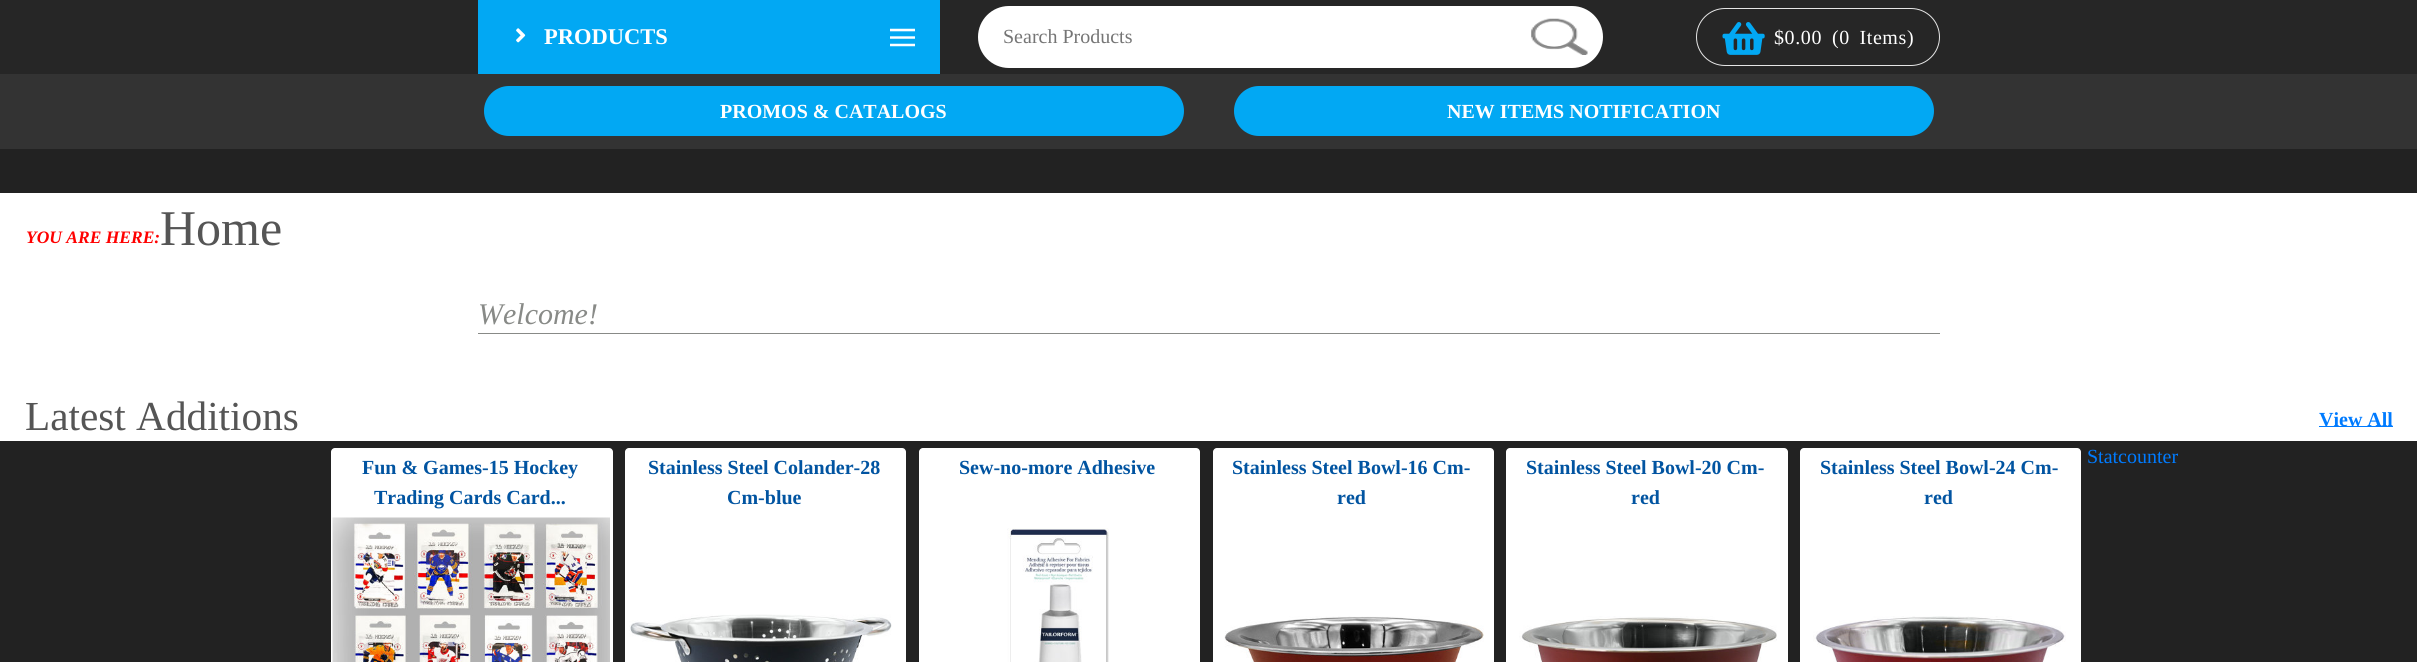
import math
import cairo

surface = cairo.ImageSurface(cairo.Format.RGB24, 2417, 662)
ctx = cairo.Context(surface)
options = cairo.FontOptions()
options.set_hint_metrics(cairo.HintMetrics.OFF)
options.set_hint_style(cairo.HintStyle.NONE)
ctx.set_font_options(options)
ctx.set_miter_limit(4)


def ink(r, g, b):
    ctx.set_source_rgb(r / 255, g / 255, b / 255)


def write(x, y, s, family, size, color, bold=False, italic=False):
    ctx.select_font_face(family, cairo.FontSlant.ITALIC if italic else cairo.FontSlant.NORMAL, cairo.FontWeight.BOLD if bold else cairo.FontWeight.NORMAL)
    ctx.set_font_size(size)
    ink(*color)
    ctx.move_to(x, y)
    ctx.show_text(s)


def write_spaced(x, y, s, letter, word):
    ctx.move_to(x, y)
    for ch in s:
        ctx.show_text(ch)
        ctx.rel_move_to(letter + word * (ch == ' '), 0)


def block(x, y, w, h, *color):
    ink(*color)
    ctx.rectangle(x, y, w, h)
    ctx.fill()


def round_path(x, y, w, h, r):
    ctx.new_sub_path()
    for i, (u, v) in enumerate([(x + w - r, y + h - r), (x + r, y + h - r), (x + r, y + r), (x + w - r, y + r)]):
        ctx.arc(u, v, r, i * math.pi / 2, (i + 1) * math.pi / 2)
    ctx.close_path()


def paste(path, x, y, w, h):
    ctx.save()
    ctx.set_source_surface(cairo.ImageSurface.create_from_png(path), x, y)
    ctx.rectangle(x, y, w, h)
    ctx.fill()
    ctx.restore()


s1 = dict(family="Liberation Serif", size=22.5, color=(255, 255, 255), bold=True)
s2 = dict(family="Liberation Serif", size=20, color=(117, 117, 117))
s3 = dict(family="Liberation Serif", size=20, color=(255, 255, 255), bold=True)
s4 = dict(family="Liberation Serif", size=17.5, color=(255, 0, 0), bold=True, italic=True)
s5 = dict(family="Liberation Serif", size=50, color=(85, 85, 85))
s6 = dict(family="Liberation Serif", size=30, color=(136, 138, 135), italic=True)
s7 = dict(family="Liberation Serif", size=41.25, color=(85, 85, 85))
s8 = dict(family="Liberation Serif", size=20, color=(0, 123, 255), bold=True)
s9 = dict(family="Liberation Serif", size=20, color=(1, 84, 161), bold=True)
s10 = dict(family="Liberation Serif", size=20, color=(0, 123, 255))

ink(34, 34, 34)
ctx.paint()
block(0, 0, 2417, 74, 38, 38, 38)
block(478, 0, 462, 74, 2, 168, 243)
paste("pic1.png", 516, 28, 10, 15)
write(544, 44, "PRODUCTS", **s1)
paste("pic2.png", 890, 28, 25, 19)
round_path(978, 6, 625, 62, 31)
ctx.fill()
write(1003, 43, "Search Products", **s2)
paste("pic3.png", 1531, 18, 57, 37)
round_path(1696.5, 8.5, 243, 57, 28.5)
ink(229, 229, 229)
ctx.set_line_width(1)
ctx.stroke()
paste("pic4.png", 1722, 22, 43, 33)
ink(255, 255, 255)
write_spaced(1774, 44, "$0.00", 0.6, 0)
write_spaced(1832, 44, "(0 Items)", 0.6, 4)
block(0, 74, 2417, 75, 51, 51, 51)
ink(2, 168, 243)
round_path(484, 86, 700, 50, 25)
ctx.fill()
write(720, 118, "PROMOS & CATALOGS", **s3)
ink(2, 168, 243)
round_path(1234, 86, 700, 50, 25)
ctx.fill()
write(1447, 118, "NEW ITEMS NOTIFICATION", **s3)
block(0, 193, 2417, 248, 255, 255, 255)
write(26, 243, "YOU ARE HERE:", **s4)
write(160, 245, "Home", **s5)
block(478, 333, 1462, 1, 136, 138, 135)
write(478, 324, "Welcome!", **s6)
write(25, 430, "Latest Additions", **s7)
block(2319, 426, 74, 1, 0, 123, 255)
write(2319, 426, "View All", **s8)
ink(255, 255, 255)
round_path(331, 448, 282, 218, 4)
ctx.fill()
write(362, 474, "Fun & Games-15 Hockey", **s9)
write(374, 504, "Trading Cards Card...", **s9)
paste("pic5.png", 332, 517, 278, 145)
ink(255, 255, 255)
round_path(625, 448, 281, 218, 4)
ctx.fill()
write(648, 474, "Stainless Steel Colander-28", **s9)
write(727, 504, "Cm-blue", **s9)
paste("pic6.png", 629, 614, 263, 48)
ink(255, 255, 255)
round_path(919, 448, 281, 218, 4)
ctx.fill()
write(959, 474, "Sew-no-more Adhesive", **s9)
paste("pic7.png", 1007, 528, 102, 134)
ink(255, 255, 255)
round_path(1213, 448, 281, 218, 4)
ctx.fill()
write(1232, 474, "Stainless Steel Bowl-16 Cm-", **s9)
write(1337, 504, "red", **s9)
paste("pic8.png", 1224, 616, 260, 46)
ink(255, 255, 255)
round_path(1506, 448, 282, 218, 4)
ctx.fill()
write(1526, 474, "Stainless Steel Bowl-20 Cm-", **s9)
write(1631, 504, "red", **s9)
paste("pic9.png", 1519, 616, 258, 46)
ink(255, 255, 255)
round_path(1800, 448, 281, 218, 4)
ctx.fill()
write(1820, 474, "Stainless Steel Bowl-24 Cm-", **s9)
write(1924, 504, "red", **s9)
paste("pic10.png", 1813, 616, 253, 46)
write(2087, 463, "Statcounter", **s10)
surface.write_to_png("screenshot.png")
